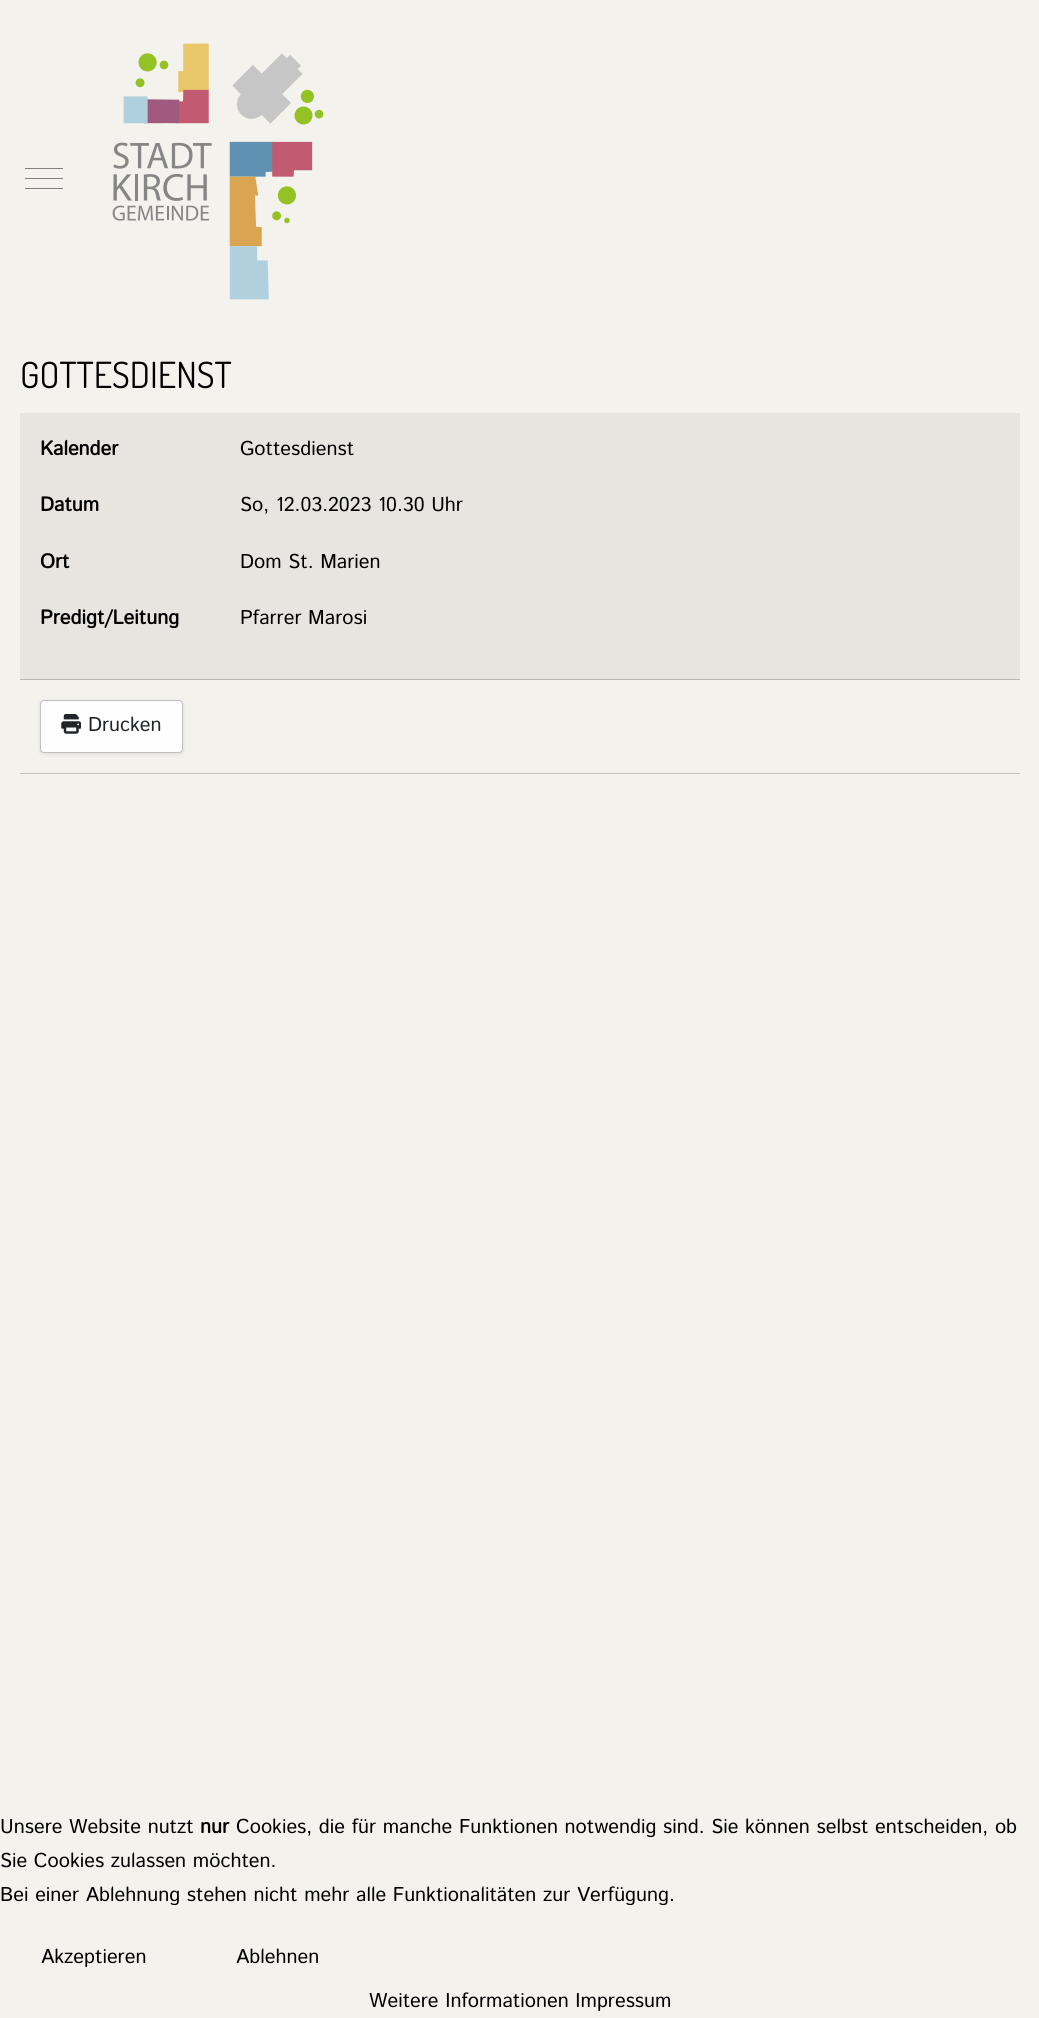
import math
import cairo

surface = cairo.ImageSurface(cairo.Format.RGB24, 1039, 2018)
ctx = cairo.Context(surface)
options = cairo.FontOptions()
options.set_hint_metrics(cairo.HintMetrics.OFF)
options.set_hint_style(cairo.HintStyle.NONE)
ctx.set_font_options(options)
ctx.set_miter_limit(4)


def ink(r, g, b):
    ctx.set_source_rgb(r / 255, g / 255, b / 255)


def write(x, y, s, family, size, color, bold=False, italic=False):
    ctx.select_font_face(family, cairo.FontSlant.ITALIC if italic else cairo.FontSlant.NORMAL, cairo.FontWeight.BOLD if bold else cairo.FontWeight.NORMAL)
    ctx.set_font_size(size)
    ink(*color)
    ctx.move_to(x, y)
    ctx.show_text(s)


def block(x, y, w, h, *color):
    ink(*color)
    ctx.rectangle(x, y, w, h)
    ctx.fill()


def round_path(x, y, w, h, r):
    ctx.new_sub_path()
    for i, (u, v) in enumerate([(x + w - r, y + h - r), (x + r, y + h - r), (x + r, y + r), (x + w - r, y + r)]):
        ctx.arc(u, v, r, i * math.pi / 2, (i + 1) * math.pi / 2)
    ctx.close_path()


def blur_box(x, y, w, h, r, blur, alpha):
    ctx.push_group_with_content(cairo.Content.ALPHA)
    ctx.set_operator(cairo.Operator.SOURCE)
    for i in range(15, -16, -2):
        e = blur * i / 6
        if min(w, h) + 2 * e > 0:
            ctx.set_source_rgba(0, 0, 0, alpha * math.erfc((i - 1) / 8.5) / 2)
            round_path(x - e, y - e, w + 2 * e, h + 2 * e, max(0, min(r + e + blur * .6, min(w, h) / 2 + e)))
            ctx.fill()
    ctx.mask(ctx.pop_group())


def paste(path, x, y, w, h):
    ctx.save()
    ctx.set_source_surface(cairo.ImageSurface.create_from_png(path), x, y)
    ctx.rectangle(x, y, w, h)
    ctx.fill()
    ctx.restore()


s1 = dict(family="Dosis", size=36, color=(0, 0, 0))
s2 = dict(family="Istok Web", size=20, color=(0, 0, 0), bold=True)
s3 = dict(family="Istok Web", size=20, color=(0, 0, 0))
s4 = dict(family="Istok Web", size=20, color=(33, 37, 41))

ink(243, 242, 237)
ctx.paint()
block(25, 178, 38, 1, 128, 128, 128)
block(25, 168, 38, 1, 128, 128, 128)
block(25, 188, 38, 1, 128, 128, 128)
paste("pic1.png", 112, 43, 212, 257)
write(20, 388, "GOTTESDIENST", **s1)
block(20, 413, 1000, 266, 232, 229, 224)
block(20, 679, 1000, 1, 186, 183, 179)
write(40, 455, "Kalender", **s2)
write(240, 455, "Gottesdienst", **s3)
write(40, 511, "Datum", **s2)
write(240, 511, "So, 12.03.2023 10.30 Uhr", **s3)
write(40, 568, "Ort", **s2)
write(240, 568, "Dom St. Marien", **s3)
write(40, 624, "Predigt/Leitung", **s2)
write(240, 624, "Pfarrer Marosi", **s3)
block(20, 773, 1000, 1, 194, 194, 190)
ink(0, 0, 0)
blur_box(40, 701, 143, 53, 4, 2, 0.1)
ink(254, 254, 254)
round_path(40.5, 700.5, 142, 52, 3.5)
ctx.fill_preserve()
ink(192, 192, 192)
ctx.set_line_width(1)
ctx.stroke()
paste("pic2.png", 61, 714, 20, 20)
write(88, 731, "Drucken", **s4)
write(0, 1833, "Unsere Website nutzt", **s3)
write(200, 1833, "nur", **s2)
write(236, 1833, "Cookies, die für manche Funktionen notwendig sind. Sie können selbst entscheiden, ob", **s3)
write(0, 1867, "Sie Cookies zulassen möchten.", **s3)
write(0, 1901, "Bei einer Ablehnung stehen nicht mehr alle Funktionalitäten zur Verfügung.", **s3)
write(41, 1963, "Akzeptieren", **s3)
write(236, 1963, "Ablehnen", **s3)
write(369, 2007, "Weitere Informationen Impressum", **s3)
surface.write_to_png("screenshot.png")
